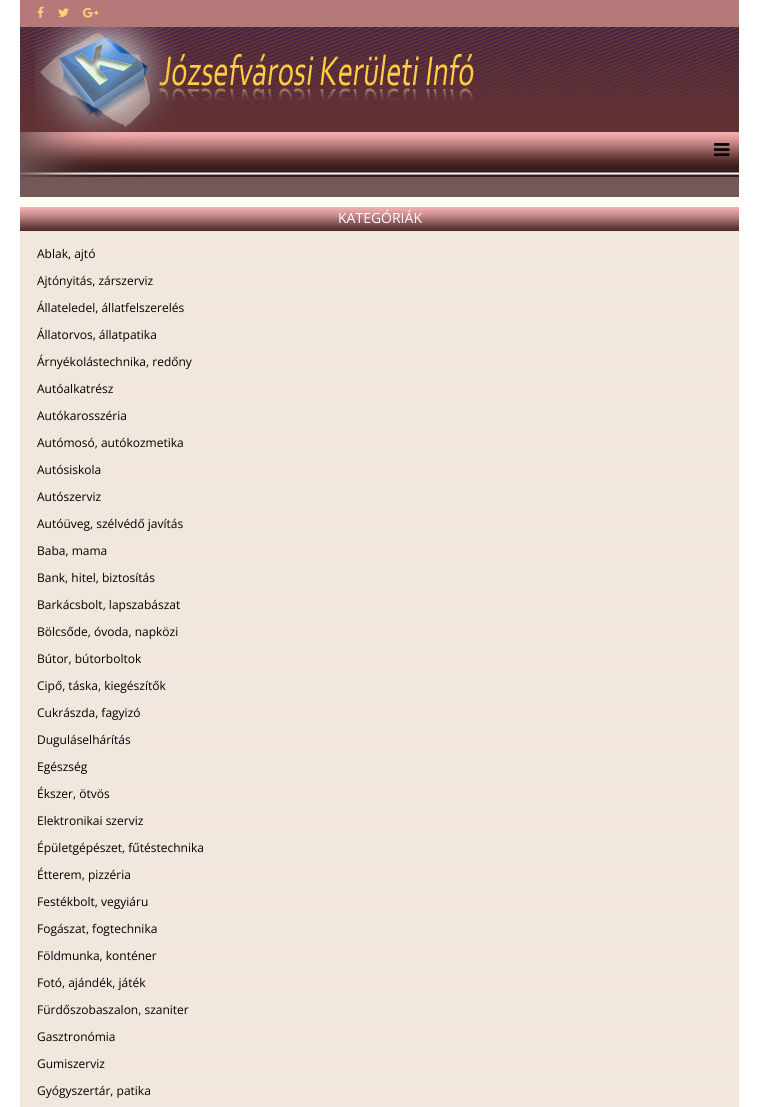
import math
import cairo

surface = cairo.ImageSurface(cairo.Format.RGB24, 759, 1107)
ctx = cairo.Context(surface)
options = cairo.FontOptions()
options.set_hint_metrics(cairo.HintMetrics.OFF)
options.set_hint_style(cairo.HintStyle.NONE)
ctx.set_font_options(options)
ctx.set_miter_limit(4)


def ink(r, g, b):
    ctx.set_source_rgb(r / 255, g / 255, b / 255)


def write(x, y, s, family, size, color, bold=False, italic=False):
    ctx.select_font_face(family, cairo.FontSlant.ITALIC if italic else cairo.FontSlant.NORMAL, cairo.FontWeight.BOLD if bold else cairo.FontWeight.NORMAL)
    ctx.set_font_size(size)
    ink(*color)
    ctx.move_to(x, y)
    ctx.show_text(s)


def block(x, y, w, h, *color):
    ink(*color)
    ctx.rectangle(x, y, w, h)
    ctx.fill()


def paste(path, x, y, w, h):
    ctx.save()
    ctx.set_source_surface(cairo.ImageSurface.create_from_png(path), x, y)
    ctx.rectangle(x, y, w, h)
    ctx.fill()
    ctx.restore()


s1 = dict(family="Open Sans", size=14, color=(255, 255, 255))
s2 = dict(family="Open Sans", size=12, color=(0, 0, 0))

ink(255, 255, 255)
ctx.paint()
paste("pic1.png", 20, 132, 719, 65)
block(20, 0, 719, 27, 182, 121, 121)
paste("pic2.png", 37, 6, 7, 12)
paste("pic3.png", 58, 8, 11, 9)
paste("pic4.png", 83, 7, 16, 11)
paste("pic5.png", 20, 27, 719, 105)
paste("pic6.png", 35, 27, 439, 105)
paste("pic7.png", 26, 132, 713, 45)
paste("pic8.png", 20, 132, 719, 45)
paste("pic9.png", 20, 132, 116, 45)
paste("pic10.png", 714, 143, 16, 13)
block(20, 197, 719, 10, 255, 254, 241)
paste("pic11.png", 20, 207, 719, 24)
write(338, 223, "KATEGÓRIÁK", **s1)
block(20, 231, 719, 876, 241, 231, 221)
block(30, 267, 699, 1, 232, 232, 232)
write(37, 258, "Ablak, ajtó", **s2)
block(30, 294, 699, 1, 232, 232, 232)
write(37, 285, "Ajtónyitás, zárszerviz", **s2)
block(30, 321, 699, 1, 232, 232, 232)
write(37, 312, "Állateledel, állatfelszerelés", **s2)
block(30, 348, 699, 1, 232, 232, 232)
write(37, 339, "Állatorvos, állatpatika", **s2)
block(30, 375, 699, 1, 232, 232, 232)
write(37, 366, "Árnyékolástechnika, redőny", **s2)
block(30, 402, 699, 1, 232, 232, 232)
write(37, 393, "Autóalkatrész", **s2)
block(30, 429, 699, 1, 232, 232, 232)
write(37, 420, "Autókarosszéria", **s2)
block(30, 456, 699, 1, 232, 232, 232)
write(37, 447, "Autómosó, autókozmetika", **s2)
block(30, 483, 699, 1, 232, 232, 232)
write(37, 474, "Autósiskola", **s2)
block(30, 510, 699, 1, 232, 232, 232)
write(37, 501, "Autószerviz", **s2)
block(30, 537, 699, 1, 232, 232, 232)
write(37, 528, "Autóüveg, szélvédő javítás", **s2)
block(30, 564, 699, 1, 232, 232, 232)
write(37, 555, "Baba, mama", **s2)
block(30, 591, 699, 1, 232, 232, 232)
write(37, 582, "Bank, hitel, biztosítás", **s2)
block(30, 618, 699, 1, 232, 232, 232)
write(37, 609, "Barkácsbolt, lapszabászat", **s2)
block(30, 645, 699, 1, 232, 232, 232)
write(37, 636, "Bölcsőde, óvoda, napközi", **s2)
block(30, 672, 699, 1, 232, 232, 232)
write(37, 663, "Bútor, bútorboltok", **s2)
block(30, 699, 699, 1, 232, 232, 232)
write(37, 690, "Cipő, táska, kiegészítők", **s2)
block(30, 726, 699, 1, 232, 232, 232)
write(37, 717, "Cukrászda, fagyizó", **s2)
block(30, 753, 699, 1, 232, 232, 232)
write(37, 744, "Duguláselhárítás", **s2)
block(30, 780, 699, 1, 232, 232, 232)
write(37, 771, "Egészség", **s2)
block(30, 807, 699, 1, 232, 232, 232)
write(37, 798, "Ékszer, ötvös", **s2)
block(30, 834, 699, 1, 232, 232, 232)
write(37, 825, "Elektronikai szerviz", **s2)
block(30, 861, 699, 1, 232, 232, 232)
write(37, 852, "Épületgépészet, fűtéstechnika", **s2)
block(30, 888, 699, 1, 232, 232, 232)
write(37, 879, "Étterem, pizzéria", **s2)
block(30, 915, 699, 1, 232, 232, 232)
write(37, 906, "Festékbolt, vegyiáru", **s2)
block(30, 942, 699, 1, 232, 232, 232)
write(37, 933, "Fogászat, fogtechnika", **s2)
block(30, 969, 699, 1, 232, 232, 232)
write(37, 960, "Földmunka, konténer", **s2)
block(30, 996, 699, 1, 232, 232, 232)
write(37, 987, "Fotó, ajándék, játék", **s2)
block(30, 1023, 699, 1, 232, 232, 232)
write(37, 1014, "Fürdőszobaszalon, szaniter", **s2)
block(30, 1050, 699, 1, 232, 232, 232)
write(37, 1041, "Gasztronómia", **s2)
block(30, 1077, 699, 1, 232, 232, 232)
write(37, 1068, "Gumiszerviz", **s2)
block(30, 1104, 699, 1, 232, 232, 232)
write(37, 1095, "Gyógyszertár, patika", **s2)
surface.write_to_png("screenshot.png")
